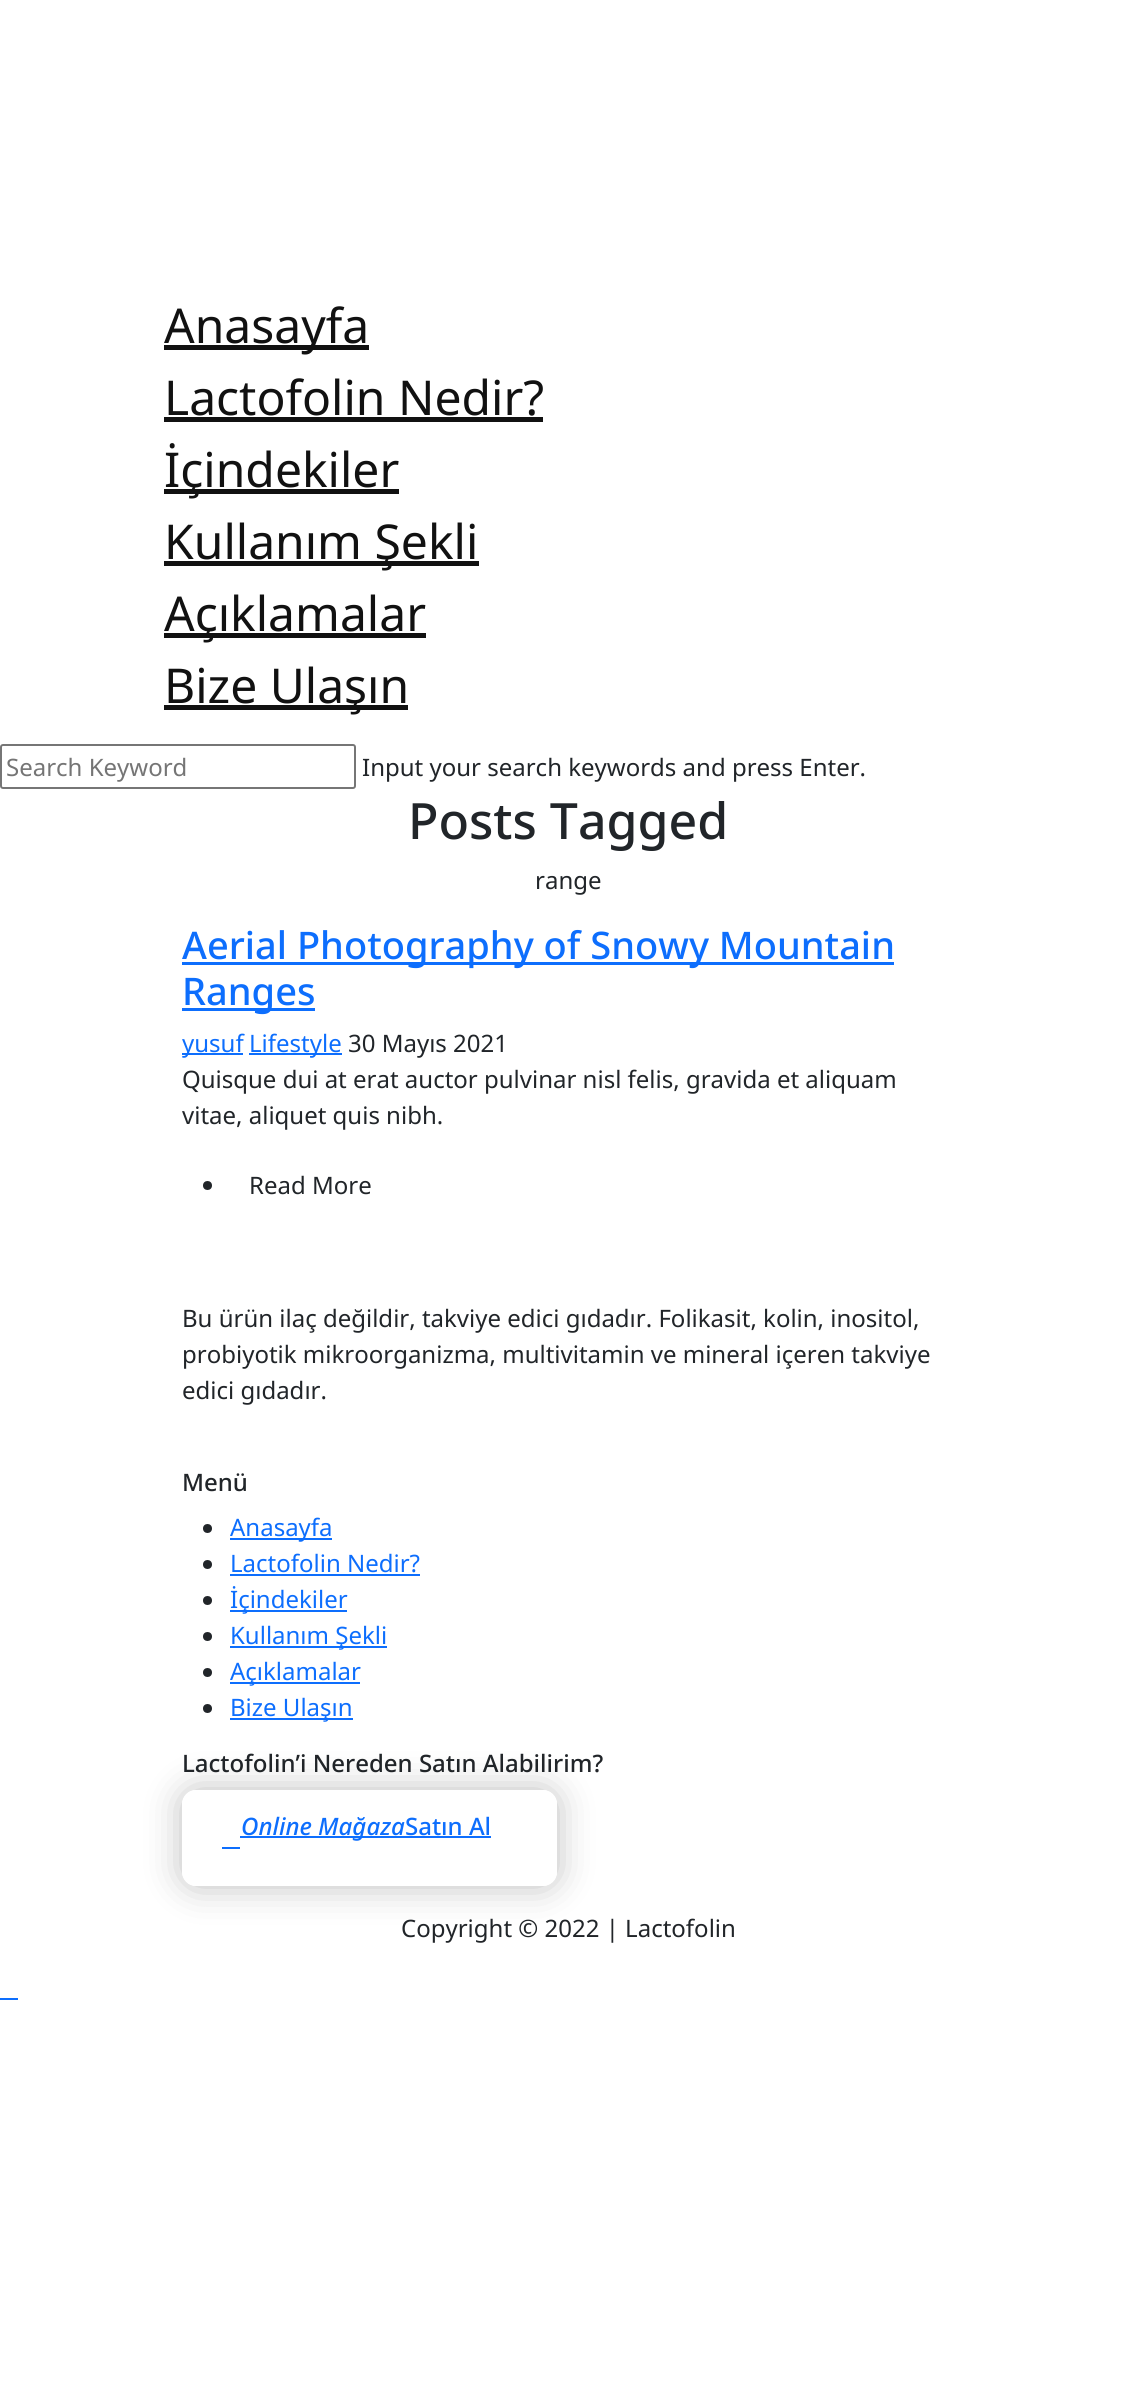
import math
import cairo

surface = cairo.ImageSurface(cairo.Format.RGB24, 1137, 2385)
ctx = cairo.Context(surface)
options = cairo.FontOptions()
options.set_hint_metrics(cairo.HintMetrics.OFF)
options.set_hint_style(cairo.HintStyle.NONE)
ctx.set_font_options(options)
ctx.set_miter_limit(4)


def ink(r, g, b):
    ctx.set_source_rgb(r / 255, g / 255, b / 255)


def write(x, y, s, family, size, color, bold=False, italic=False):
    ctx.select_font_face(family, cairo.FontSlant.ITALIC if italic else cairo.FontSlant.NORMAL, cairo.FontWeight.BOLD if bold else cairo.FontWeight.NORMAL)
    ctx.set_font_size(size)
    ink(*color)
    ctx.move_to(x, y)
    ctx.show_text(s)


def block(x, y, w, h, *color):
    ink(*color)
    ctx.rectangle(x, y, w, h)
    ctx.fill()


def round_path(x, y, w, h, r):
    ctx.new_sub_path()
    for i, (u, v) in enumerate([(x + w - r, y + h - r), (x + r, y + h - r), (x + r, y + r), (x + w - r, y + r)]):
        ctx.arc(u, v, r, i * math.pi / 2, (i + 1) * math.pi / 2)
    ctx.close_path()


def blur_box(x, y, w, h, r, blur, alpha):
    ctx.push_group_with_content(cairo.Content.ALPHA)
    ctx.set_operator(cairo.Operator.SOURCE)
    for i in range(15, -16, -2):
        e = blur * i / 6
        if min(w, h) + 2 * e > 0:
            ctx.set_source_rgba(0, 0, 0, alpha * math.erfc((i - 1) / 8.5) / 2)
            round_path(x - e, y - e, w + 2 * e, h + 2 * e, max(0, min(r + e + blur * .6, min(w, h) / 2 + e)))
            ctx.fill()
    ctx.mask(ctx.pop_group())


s1 = dict(family="Noto Sans", size=48, color=(17, 17, 17))
s2 = dict(family="Noto Sans", size=24, color=(117, 117, 117))
s3 = dict(family="Noto Sans", size=24, color=(33, 37, 41))
s4 = dict(family="Noto Sans Medium", size=50, color=(33, 37, 41))
s5 = dict(family="Noto Sans Medium", size=38, color=(13, 110, 253))
s6 = dict(family="Noto Sans", size=24, color=(13, 110, 253))
s7 = dict(family="Noto Sans Medium", size=24, color=(33, 37, 41))
s8 = dict(family="Noto Sans Medium", size=24, color=(13, 110, 253), italic=True)
s9 = dict(family="Noto Sans Medium", size=24, color=(13, 110, 253))

ink(255, 255, 255)
ctx.paint()
block(164, 345, 205, 5, 17, 17, 17)
write(164, 343, "Anasayfa", **s1)
write(164, 415, "Lactofolin Nedir?", **s1)
block(164, 417, 379, 5, 17, 17, 17)
block(164, 489, 235, 5, 17, 17, 17)
write(164, 487, "İçindekiler", **s1)
block(164, 561, 315, 5, 17, 17, 17)
write(164, 559, "Kullanım Şekli", **s1)
block(164, 633, 262, 5, 17, 17, 17)
write(164, 631, "Açıklamalar", **s1)
block(164, 705, 244, 5, 17, 17, 17)
write(164, 703, "Bize Ulaşın", **s1)
round_path(1, 745, 354, 43, 2)
ink(118, 118, 118)
ctx.stroke()
write(6, 776, "Search Keyword", **s2)
write(362, 776, "Input your search keywords and press Enter.", **s3)
write(408, 839, "Posts Tagged", **s4)
write(535, 889, "range", **s3)
block(182, 962, 712, 3, 13, 110, 253)
write(182, 959, "Aerial Photography of Snowy Mountain", **s5)
block(182, 1008, 133, 3, 13, 110, 253)
write(182, 1005, "Ranges", **s5)
block(182, 1053, 61, 2, 13, 110, 253)
write(182, 1052, "yusuf", **s6)
block(249, 1053, 93, 2, 13, 110, 253)
write(249, 1052, "Lifestyle", **s6)
write(348, 1052, "30 Mayıs 2021", **s3)
write(182, 1088, "Quisque dui at erat auctor pulvinar nisl felis, gravida et aliquam", **s3)
write(182, 1124, "vitae, aliquet quis nibh.", **s3)
ctx.new_path()
ctx.arc(207.5, 1185.5, 4.5, 0, 2 * math.pi)
ctx.fill()
write(249, 1194, "Read More", **s3)
write(182, 1327, "Bu ürün ilaç değildir, takviye edici gıdadır. Folikasit, kolin, inositol,", **s3)
write(182, 1363, "probiyotik mikroorganizma, multivitamin ve mineral içeren takviye", **s3)
write(182, 1399, "edici gıdadır.", **s3)
write(182, 1491, "Menü", **s7)
ctx.new_path()
ctx.arc(207.5, 1528.5, 4.5, 0, 2 * math.pi)
ctx.fill()
block(230, 1538, 102, 2, 13, 110, 253)
write(230, 1536, "Anasayfa", **s6)
ink(33, 37, 41)
ctx.new_path()
ctx.arc(207.5, 1564.5, 4.5, 0, 2 * math.pi)
ctx.fill()
write(230, 1572, "Lactofolin Nedir?", **s6)
block(230, 1574, 190, 2, 13, 110, 253)
ink(33, 37, 41)
ctx.new_path()
ctx.arc(207.5, 1600.5, 4.5, 0, 2 * math.pi)
ctx.fill()
block(230, 1610, 117, 2, 13, 110, 253)
write(230, 1608, "İçindekiler", **s6)
ink(33, 37, 41)
ctx.new_path()
ctx.arc(207.5, 1636.5, 4.5, 0, 2 * math.pi)
ctx.fill()
block(230, 1646, 157, 2, 13, 110, 253)
write(230, 1644, "Kullanım Şekli", **s6)
ink(33, 37, 41)
ctx.new_path()
ctx.arc(207.5, 1672.5, 4.5, 0, 2 * math.pi)
ctx.fill()
block(230, 1682, 130, 2, 13, 110, 253)
write(230, 1680, "Açıklamalar", **s6)
ink(33, 37, 41)
ctx.new_path()
ctx.arc(207.5, 1708.5, 4.5, 0, 2 * math.pi)
ctx.fill()
block(230, 1718, 123, 2, 13, 110, 253)
write(230, 1716, "Bize Ulaşın", **s6)
write(182, 1772, "Lactofolin’i Nereden Satın Alabilirim?", **s7)
ctx.save()
ctx.set_fill_rule(cairo.FillRule.EVEN_ODD)
ctx.new_path()
ctx.move_to(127, 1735)
ctx.line_to(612, 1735)
ctx.line_to(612, 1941)
ctx.line_to(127, 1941)
ctx.close_path()
ctx.move_to(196, 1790)
ctx.line_to(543, 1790)
ctx.curve_to(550.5, 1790, 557, 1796.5, 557, 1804)
ctx.line_to(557, 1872)
ctx.curve_to(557, 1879.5, 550.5, 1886, 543, 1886)
ctx.line_to(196, 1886)
ctx.curve_to(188.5, 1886, 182, 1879.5, 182, 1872)
ctx.line_to(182, 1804)
ctx.curve_to(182, 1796.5, 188.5, 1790, 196, 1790)
ctx.close_path()
ctx.clip()
ink(0, 0, 0)
blur_box(182, 1790, 375, 96, 14, 18, 0.26)
ctx.restore()
ctx.save()
round_path(182, 1790, 375, 96, 14)
ctx.clip()
gradient = cairo.LinearGradient(554, 1838, 185, 1838)
gradient.add_color_stop_rgba(0.5, 1, 1, 1, 0.12)
gradient.add_color_stop_rgba(1, 1, 1, 1, 0.28)
ctx.set_source(gradient)
ctx.rectangle(185, 1790, 369, 96)
ctx.fill()
gradient = cairo.LinearGradient(923, 1838, 554, 1838)
gradient.add_color_stop_rgba(0.5, 1, 1, 1, 0.12)
gradient.add_color_stop_rgba(1, 1, 1, 1, 0.28)
ctx.set_source(gradient)
ctx.rectangle(554, 1790, 3, 96)
ctx.fill()
ctx.restore()
round_path(183.5, 1791.5, 372, 93, 12.5)
ctx.set_source_rgba(1, 1, 1, 0.38)
ctx.set_line_width(3)
ctx.stroke()
block(240, 1836, 251, 2, 13, 110, 253)
write(241, 1835, "Online Mağaza", **s8)
write(405, 1835, "Satın Al", **s9)
block(222, 1847, 18, 2, 13, 110, 253)
write(401, 1937, "Copyright © 2022 | Lactofolin", **s3)
block(0, 1998, 18, 2, 13, 110, 253)
surface.write_to_png("screenshot.png")
